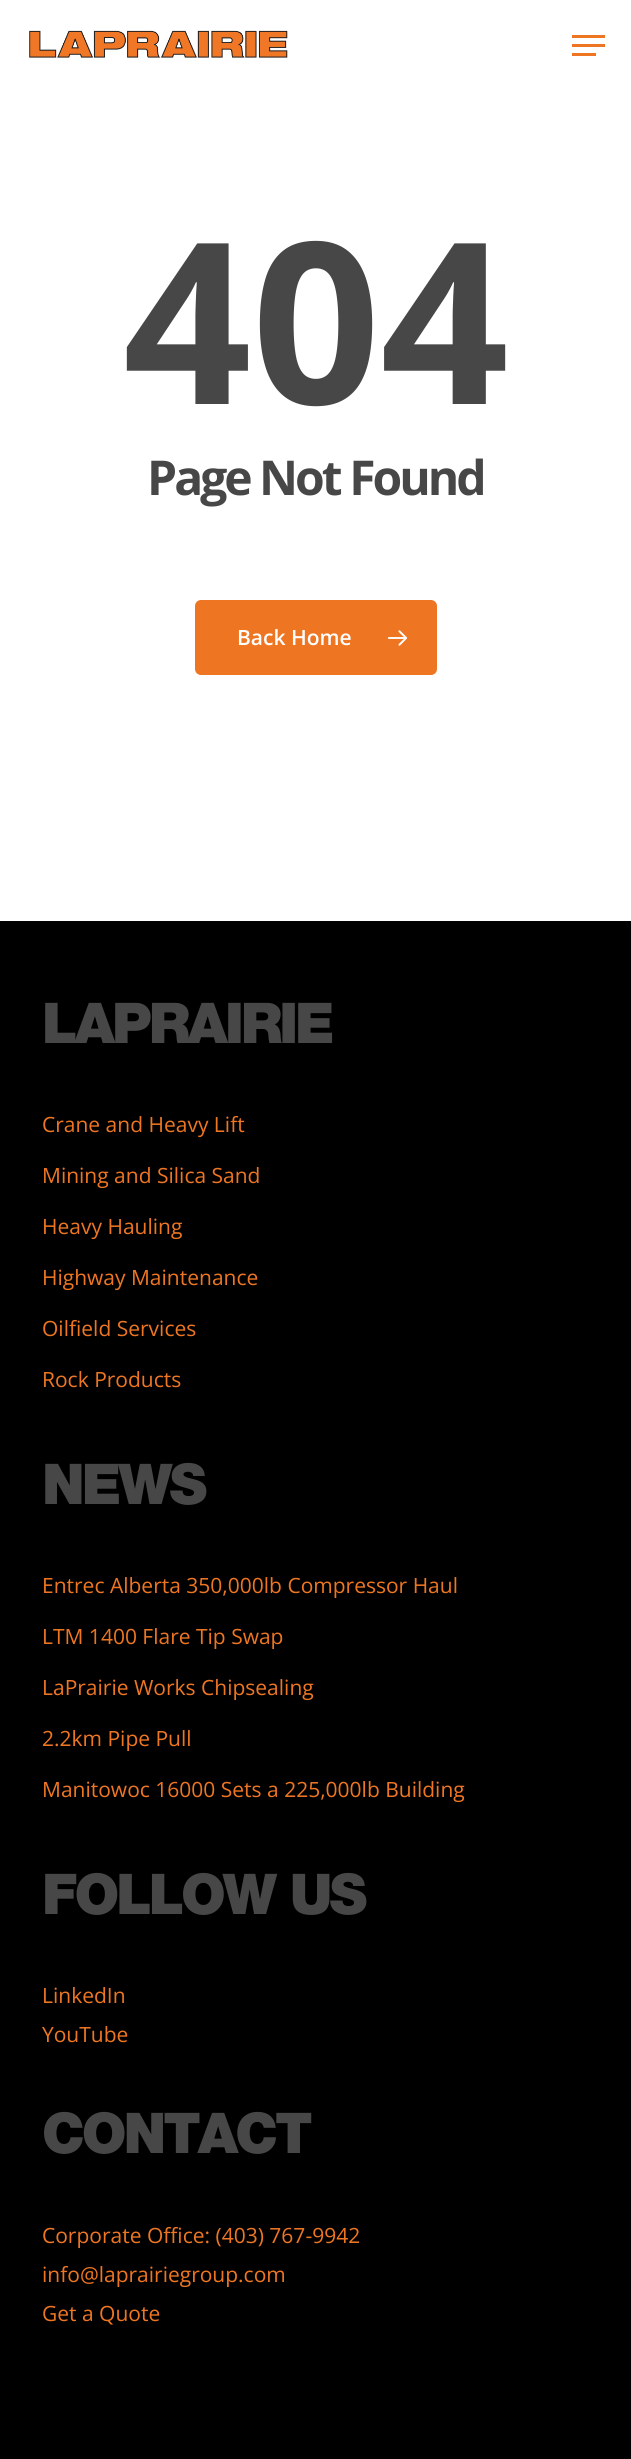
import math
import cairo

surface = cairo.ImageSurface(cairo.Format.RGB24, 631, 2459)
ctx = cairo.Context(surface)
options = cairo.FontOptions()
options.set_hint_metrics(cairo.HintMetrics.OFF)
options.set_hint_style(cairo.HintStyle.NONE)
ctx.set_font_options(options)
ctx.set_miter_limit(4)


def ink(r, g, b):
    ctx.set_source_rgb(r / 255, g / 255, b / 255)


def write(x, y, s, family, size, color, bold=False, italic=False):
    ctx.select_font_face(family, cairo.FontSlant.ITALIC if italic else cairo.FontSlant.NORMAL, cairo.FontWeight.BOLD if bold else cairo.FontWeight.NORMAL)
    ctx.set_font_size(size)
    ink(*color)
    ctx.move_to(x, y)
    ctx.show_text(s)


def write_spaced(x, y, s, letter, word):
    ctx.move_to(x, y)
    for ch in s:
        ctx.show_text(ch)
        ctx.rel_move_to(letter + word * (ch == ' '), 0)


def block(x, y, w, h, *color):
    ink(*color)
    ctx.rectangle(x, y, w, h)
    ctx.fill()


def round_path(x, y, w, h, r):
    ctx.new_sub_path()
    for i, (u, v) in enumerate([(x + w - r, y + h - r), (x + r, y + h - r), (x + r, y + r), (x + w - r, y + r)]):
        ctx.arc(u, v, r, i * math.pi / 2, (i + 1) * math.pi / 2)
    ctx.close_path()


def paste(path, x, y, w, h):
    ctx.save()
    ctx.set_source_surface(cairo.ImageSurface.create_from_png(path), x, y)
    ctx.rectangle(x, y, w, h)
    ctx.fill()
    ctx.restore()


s1 = dict(family="Open Sans", size=225, color=(71, 71, 71), bold=True)
s2 = dict(family="Open Sans SemiBold", size=21, color=(255, 255, 255))
s3 = dict(family="Open Sans", size=21, color=(238, 118, 35))

ink(255, 255, 255)
ctx.paint()
paste("pic1.png", 29, 30, 259, 28)
block(572, 35, 33, 3, 238, 118, 35)
block(572, 53, 24, 3, 238, 118, 35)
block(572, 44, 33, 3, 238, 118, 35)
write(123, 404, "404", **s1)
ctx.set_font_size(48)
write_spaced(147, 495, "Page Not Found", -3, 0)
ink(238, 118, 35)
round_path(195, 600, 242, 75, 6)
ctx.fill()
write(237, 645, "Back Home", **s2)
paste("pic2.png", 387, 630, 21, 16)
block(0, 921, 631, 1538, 0, 0, 0)
ctx.select_font_face("Helvetica Neue Black")
ctx.set_font_size(56.25)
ink(71, 71, 71)
write_spaced(42, 1043, "LAPRAIRIE", -3, 0)
write(42, 1132, "Crane and Heavy Lift", **s3)
write(42, 1183, "Mining and Silica Sand", **s3)
write(42, 1234, "Heavy Hauling", **s3)
write(42, 1285, "Highway Maintenance", **s3)
write(42, 1336, "Oilfield Services", **s3)
write(42, 1387, "Rock Products", **s3)
ctx.select_font_face("Helvetica Neue Black")
ctx.set_font_size(56.25)
ink(71, 71, 71)
write_spaced(42, 1504, "NEWS", -3, 0)
write(42, 1593, "Entrec Alberta 350,000lb Compressor Haul", **s3)
write(42, 1644, "LTM 1400 Flare Tip Swap", **s3)
write(42, 1695, "LaPrairie Works Chipsealing", **s3)
write(42, 1746, "2.2km Pipe Pull", **s3)
write(42, 1797, "Manitowoc 16000 Sets a 225,000lb Building", **s3)
ctx.select_font_face("Helvetica Neue Black")
ctx.set_font_size(56.25)
ink(71, 71, 71)
write_spaced(42, 1914, "FOLLOW US", -3, 0)
write(42, 2003, "LinkedIn", **s3)
write(42, 2042, "YouTube", **s3)
ctx.select_font_face("Helvetica Neue Black")
ctx.set_font_size(56.25)
ink(71, 71, 71)
write_spaced(42, 2153, "CONTACT", -3, 0)
write(42, 2243, "Corporate Office: (403) 767-9942", **s3)
write(42, 2282, "info@laprairiegroup.com", **s3)
write(42, 2321, "Get a Quote", **s3)
surface.write_to_png("screenshot.png")
